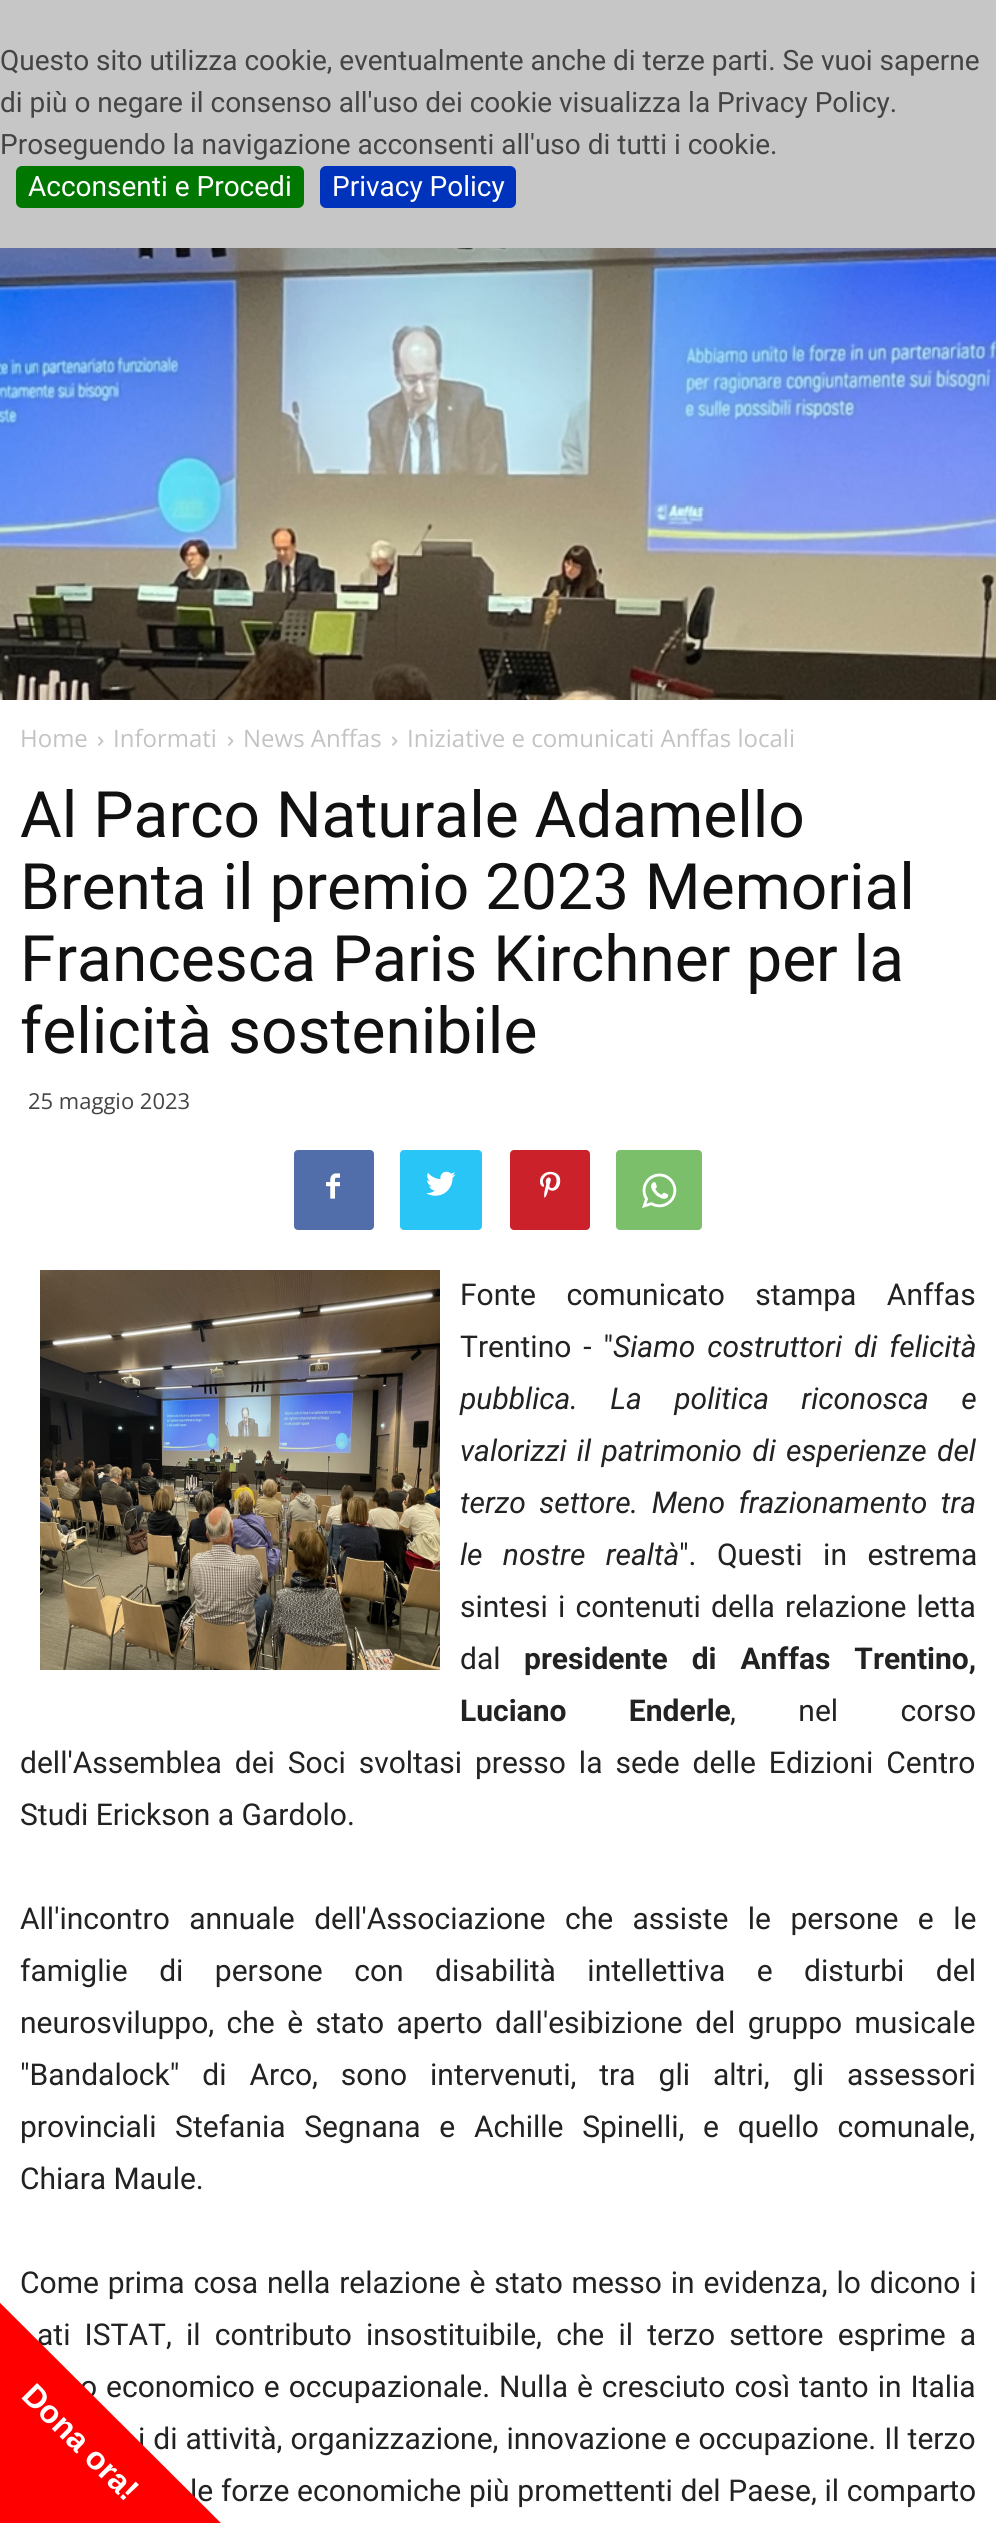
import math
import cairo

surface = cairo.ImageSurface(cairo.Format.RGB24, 996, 2523)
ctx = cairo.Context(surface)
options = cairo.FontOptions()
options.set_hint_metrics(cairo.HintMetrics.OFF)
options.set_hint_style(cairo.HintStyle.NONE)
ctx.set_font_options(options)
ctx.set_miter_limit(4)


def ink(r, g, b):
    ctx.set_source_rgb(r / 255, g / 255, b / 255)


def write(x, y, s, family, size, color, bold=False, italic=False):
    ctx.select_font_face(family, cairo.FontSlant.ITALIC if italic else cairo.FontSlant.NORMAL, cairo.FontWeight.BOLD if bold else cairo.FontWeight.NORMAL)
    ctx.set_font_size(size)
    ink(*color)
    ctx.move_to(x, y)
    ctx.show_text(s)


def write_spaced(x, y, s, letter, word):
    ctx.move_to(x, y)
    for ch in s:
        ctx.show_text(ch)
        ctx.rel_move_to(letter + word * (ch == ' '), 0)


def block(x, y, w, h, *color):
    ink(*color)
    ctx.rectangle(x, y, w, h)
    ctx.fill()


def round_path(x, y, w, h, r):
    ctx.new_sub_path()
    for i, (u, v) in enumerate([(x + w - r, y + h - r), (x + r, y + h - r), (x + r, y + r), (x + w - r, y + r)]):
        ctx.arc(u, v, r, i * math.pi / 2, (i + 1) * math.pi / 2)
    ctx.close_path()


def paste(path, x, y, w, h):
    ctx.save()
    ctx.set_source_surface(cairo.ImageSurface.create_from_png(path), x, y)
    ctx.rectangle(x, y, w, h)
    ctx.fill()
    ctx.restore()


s1 = dict(family="Roboto", size=28, color=(68, 68, 68))
s2 = dict(family="Roboto", size=28, color=(255, 255, 255))
s3 = dict(family="Open Sans", size=24, color=(195, 195, 195))
s4 = dict(family="Roboto", size=64, color=(17, 17, 17))
s5 = dict(family="Open Sans", size=22, color=(68, 68, 68))
s6 = dict(family="Roboto", size=30, color=(34, 34, 34))
s7 = dict(family="Liberation Sans", size=32, color=(255, 255, 255), bold=True)

ink(255, 255, 255)
ctx.paint()
block(0, 0, 996, 248, 198, 198, 198)
write(0, 70, "Questo sito utilizza cookie, eventualmente anche di terze parti. Se vuoi saperne", **s1)
write(0, 112, "di più o negare il consenso all'uso dei cookie visualizza la Privacy Policy.", **s1)
write(0, 154, "Proseguendo la navigazione acconsenti all'uso di tutti i cookie.", **s1)
ink(0, 119, 0)
round_path(16, 166, 288, 42, 6)
ctx.fill()
write(28, 196, "Acconsenti e Procedi", **s2)
ink(0, 51, 187)
round_path(320, 166, 196, 42, 6)
ctx.fill()
write(332, 196, "Privacy Policy", **s2)
paste("pic1.png", 0, 248, 996, 452)
write(20, 747, "Home", **s3)
paste("pic2.png", 98, 736, 6, 10)
write(113, 747, "Informati", **s3)
paste("pic2.png", 228, 736, 6, 10)
write(243, 747, "News Anffas", **s3)
paste("pic2.png", 392, 736, 6, 10)
write(407, 747, "Iniziative e comunicati Anffas locali", **s3)
write(20, 837, "Al Parco Naturale Adamello", **s4)
write(20, 909, "Brenta il premio 2023 Memorial", **s4)
write(20, 981, "Francesca Paris Kirchner per la", **s4)
write(20, 1053, "felicità sostenibile", **s4)
write(28, 1109, "25 maggio 2023", **s5)
ink(81, 110, 171)
round_path(294, 1150, 80, 80, 4)
ctx.fill()
paste("pic3.png", 326, 1173, 14, 26)
ink(41, 197, 246)
round_path(400, 1150, 82, 80, 4)
ctx.fill()
paste("pic4.png", 426, 1171, 30, 25)
ink(202, 33, 42)
round_path(510, 1150, 80, 80, 4)
ctx.fill()
paste("pic5.png", 540, 1171, 21, 27)
ink(123, 191, 106)
round_path(616, 1150, 86, 80, 4)
ctx.fill()
paste("pic6.png", 642, 1173, 35, 35)
paste("pic7.png", 40, 1270, 400, 400)
ctx.select_font_face("Roboto")
ctx.set_font_size(30)
ink(34, 34, 34)
write_spaced(460, 1305, "Fonte comunicato stampa Anffas", 0, 23)
write_spaced(460, 1357, "Trentino - \"", 0, 4.5)
ctx.select_font_face("Roboto", cairo.FontSlant.ITALIC)
write_spaced(613, 1357, "Siamo costruttori di felicità", 0, 4.5)
write_spaced(460, 1409, "pubblica. La politica riconosca e", 0, 25)
write_spaced(460, 1461, "valorizzi il patrimonio di esperienze del", 0, 3)
write_spaced(460, 1513, "terzo settore. Meno frazionamento tra", 0, 6)
write_spaced(460, 1565, "le nostre realtà", 0, 13)
ctx.select_font_face("Roboto")
write_spaced(679, 1565, "\". Questi in estrema", 0, 13)
write_spaced(460, 1617, "sintesi i contenuti della relazione letta", 0, 2.75)
write(460, 1669, "dal", **s6)
ctx.select_font_face("Roboto", cairo.FontSlant.NORMAL, cairo.FontWeight.BOLD)
write_spaced(524, 1669, "presidente di Anffas Trentino,", 0, 16.5)
write_spaced(460, 1721, "Luciano Enderle", 0, 55)
ctx.select_font_face("Roboto")
write_spaced(730, 1721, ", nel corso", 0, 55)
write_spaced(20, 1773, "dell'Assemblea dei Soci svoltasi presso la sede delle Edizioni Centro", 0, 5.5)
write(20, 1825, "Studi Erickson a Gardolo.", **s6)
write_spaced(20, 1929, "All'incontro annuale dell'Associazione che assiste le persone e le", 0, 12)
write_spaced(20, 1981, "famiglie di persone con disabilità intellettiva e disturbi del", 0, 24)
write_spaced(20, 2033, "neurosviluppo, che è stato aperto dall'esibizione del gruppo musicale", 0, 5)
write_spaced(20, 2085, "\"Bandalock\" di Arco, sono intervenuti, tra gli altri, gli assessori", 0, 15.5)
write_spaced(20, 2137, "provinciali Stefania Segnana e Achille Spinelli, e quello comunale,", 0, 11.25)
write(20, 2189, "Chiara Maule.", **s6)
write_spaced(20, 2293, "Come prima cosa nella relazione è stato messo in evidenza, lo dicono i", 0, 1.4)
write_spaced(37, 2345, "ati ISTAT, il contributo insostituibile, che il terzo settore esprime a", 0, 6.75)
write_spaced(80, 2397, "o economico e occupazionale. Nulla è cresciuto così tanto in Italia", 0, 1.5)
write_spaced(138, 2449, "i di attività, organizzazione, innovazione e occupazione. Il terzo", 0, 0.5)
write_spaced(190, 2501, "le forze economiche più promettenti del Paese, il comparto", 0, 0.25)
ink(255, 0, 0)
ctx.new_path()
ctx.move_to(-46, 2257)
ctx.line_to(266, 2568)
ctx.curve_to(269, 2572, 269, 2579, 266, 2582)
ctx.line_to(-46, 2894)
ctx.curve_to(-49, 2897, -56, 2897, -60, 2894)
ctx.line_to(-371, 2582)
ctx.curve_to(-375, 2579, -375, 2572, -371, 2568)
ctx.line_to(-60, 2257)
ctx.curve_to(-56, 2253, -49, 2253, -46, 2257)
ctx.close_path()
ctx.fill()
ctx.save()
ctx.translate(20, 2397)
ctx.rotate(45 * math.pi / 180)
write(0, 0, "Dona ora!", **s7)
ctx.restore()
surface.write_to_png("screenshot.png")
